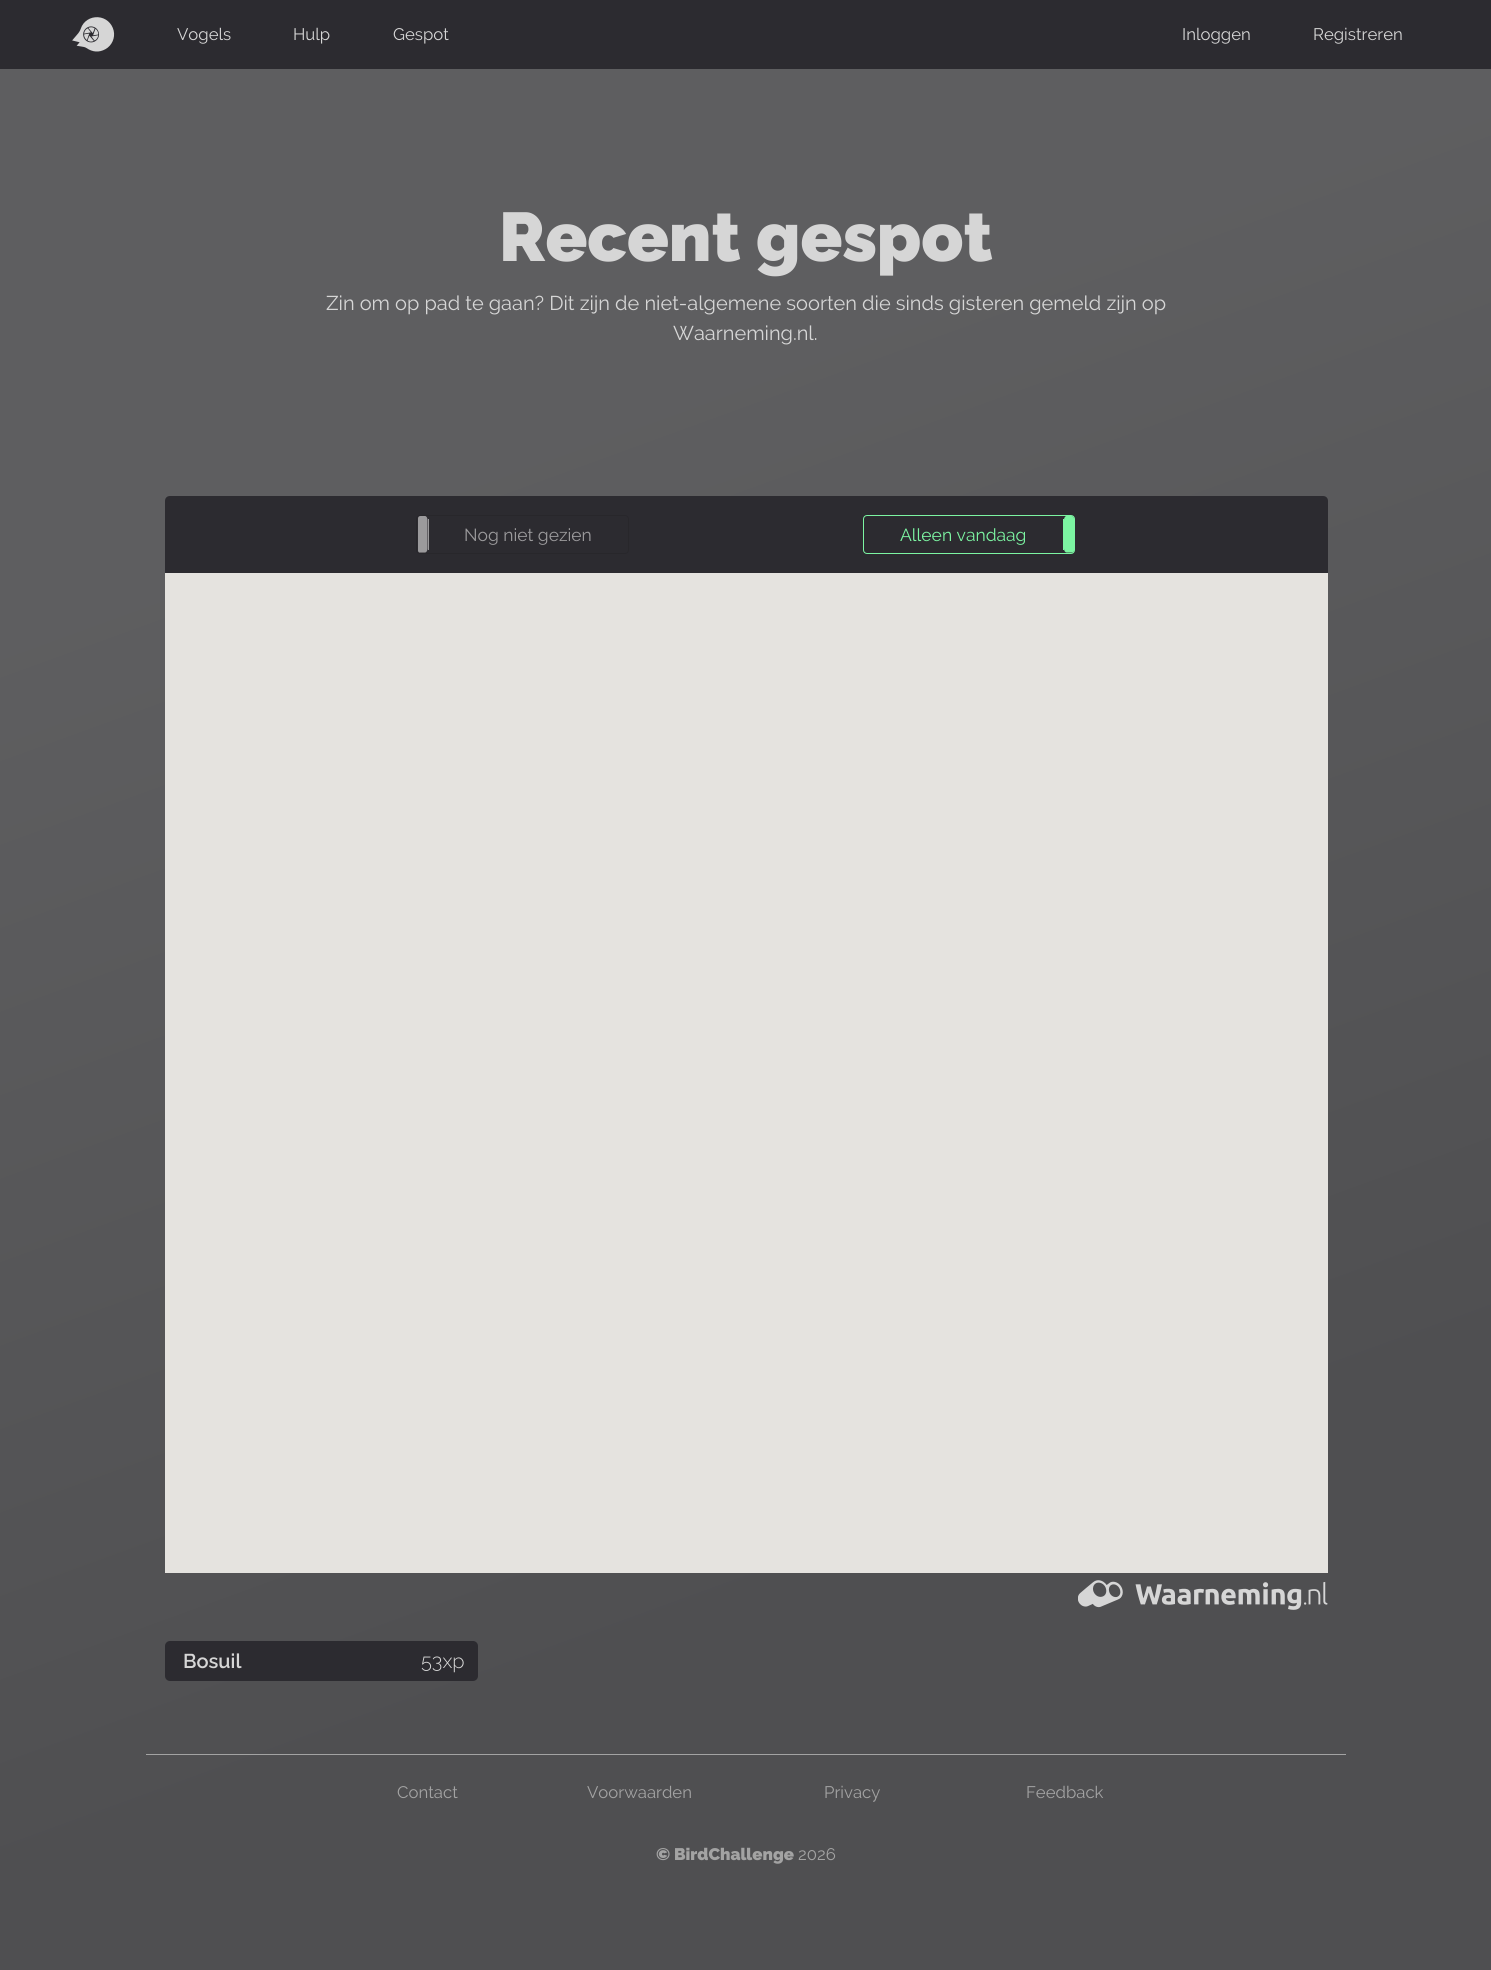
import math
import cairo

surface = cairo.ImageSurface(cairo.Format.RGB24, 1491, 1970)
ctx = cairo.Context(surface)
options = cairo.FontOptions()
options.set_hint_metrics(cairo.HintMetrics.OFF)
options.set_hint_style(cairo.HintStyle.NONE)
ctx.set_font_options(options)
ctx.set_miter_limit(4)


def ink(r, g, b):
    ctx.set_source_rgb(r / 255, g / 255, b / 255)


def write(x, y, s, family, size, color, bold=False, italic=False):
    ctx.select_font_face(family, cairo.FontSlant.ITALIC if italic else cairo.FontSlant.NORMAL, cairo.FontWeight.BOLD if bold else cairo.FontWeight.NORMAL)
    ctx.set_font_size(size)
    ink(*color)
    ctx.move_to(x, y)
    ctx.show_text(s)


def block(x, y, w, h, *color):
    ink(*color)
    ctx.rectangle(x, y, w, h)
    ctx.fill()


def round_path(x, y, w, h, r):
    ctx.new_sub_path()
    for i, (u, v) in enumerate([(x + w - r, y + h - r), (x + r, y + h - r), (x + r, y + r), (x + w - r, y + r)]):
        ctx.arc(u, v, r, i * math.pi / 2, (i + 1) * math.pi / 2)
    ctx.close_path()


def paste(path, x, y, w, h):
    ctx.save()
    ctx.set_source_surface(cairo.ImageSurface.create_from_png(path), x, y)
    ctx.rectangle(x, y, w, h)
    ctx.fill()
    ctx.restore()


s1 = dict(family="Raleway", size=16.75, color=(214, 214, 214))
s2 = dict(family="Raleway Black", size=68.75, color=(214, 214, 214))
s3 = dict(family="Raleway", size=20, color=(214, 214, 214))
s4 = dict(family="Raleway", size=17.5, color=(155, 154, 156))
s5 = dict(family="Raleway", size=17.5, color=(124, 245, 162))
s6 = dict(family="Raleway SemiBold", size=20, color=(214, 214, 214))
s7 = dict(family="Raleway Light", size=20, color=(214, 214, 214))
s8 = dict(family="Raleway", size=16.75, color=(163, 163, 163))
s9 = dict(family="Raleway Black", size=16.75, color=(163, 163, 163))

ink(255, 255, 255)
ctx.paint()
gradient = cairo.LinearGradient(342, -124, 1149, 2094)
gradient.add_color_stop_rgba(0.25, 0.369, 0.369, 0.376, 1)
gradient.add_color_stop_rgba(0.75, 0.31, 0.31, 0.318, 1)
ctx.set_source(gradient)
ctx.rectangle(0, 69, 1491, 1901)
ctx.fill()
block(0, 0, 1491, 69, 44, 43, 48)
paste("pic1.png", 72, 17, 43, 35)
write(177, 40, "Vogels", **s1)
write(293, 40, "Hulp", **s1)
write(393, 40, "Gespot", **s1)
write(1182, 40, "Inloggen", **s1)
write(1313, 40, "Registreren", **s1)
write(499, 261, "Recent gespot", **s2)
write(326, 310, "Zin om op pad te gaan? Dit zijn de niet-algemene soorten die sinds gisteren gemeld zijn op", **s3)
write(673, 340, "Waarneming.nl.", **s3)
ink(44, 43, 48)
ctx.new_path()
ctx.move_to(170, 496)
ctx.line_to(1323, 496)
ctx.curve_to(1326, 496, 1328, 498, 1328, 501)
ctx.line_to(1328, 573)
ctx.line_to(165, 573)
ctx.line_to(165, 501)
ctx.curve_to(165, 498, 167, 496, 170, 496)
ctx.close_path()
ctx.fill()
round_path(416.5, 515.5, 212, 38, 3.5)
ink(40, 39, 43)
ctx.set_line_width(1)
ctx.stroke()
ink(155, 154, 156)
ctx.new_path()
ctx.move_to(420.5, 516)
ctx.curve_to(419, 516, 418, 517, 418, 518.5)
ctx.line_to(418, 550.5)
ctx.curve_to(418, 551.5, 418.5, 552, 419, 552.5)
ctx.line_to(425, 552.5)
ctx.curve_to(426.5, 552.5, 427.5, 550.5, 427.5, 548.5)
ctx.line_to(427.5, 520)
ctx.curve_to(427.5, 518, 426.5, 516, 425, 516)
ctx.close_path()
ctx.fill()
block(428, 519, 1, 31, 155, 154, 156)
write(464, 541, "Nog niet gezien", **s4)
round_path(863.5, 515.5, 211, 38, 3.5)
ink(124, 245, 162)
ctx.stroke()
write(900, 541, "Alleen vandaag", **s5)
ctx.new_path()
ctx.move_to(1066.5, 516)
ctx.curve_to(1065, 516, 1064, 518, 1064, 520)
ctx.line_to(1064, 548.5)
ctx.curve_to(1064, 550.5, 1065, 552.5, 1066.5, 552.5)
ctx.line_to(1073, 552.5)
ctx.curve_to(1073.5, 552, 1074, 551.5, 1074, 550.5)
ctx.line_to(1074, 518.5)
ctx.curve_to(1074, 517, 1073, 516, 1071.5, 516)
ctx.close_path()
ctx.fill()
block(1063, 519, 1, 31, 124, 245, 162)
block(165, 573, 1163, 1000, 229, 227, 223)
paste("pic2.png", 1078, 1580, 250, 30)
ink(44, 43, 48)
round_path(165, 1641, 313, 40, 5)
ctx.fill()
write(183, 1668, "Bosuil", **s6)
write(421, 1668, "53xp", **s7)
block(146, 1754, 1200, 1, 163, 163, 163)
write(397, 1798, "Contact", **s8)
write(587, 1798, "Voorwaarden", **s8)
write(824, 1798, "Privacy", **s8)
write(1026, 1798, "Feedback", **s8)
write(656, 1860, "© BirdChallenge", **s9)
write(798, 1860, "2026", **s8)
surface.write_to_png("screenshot.png")
